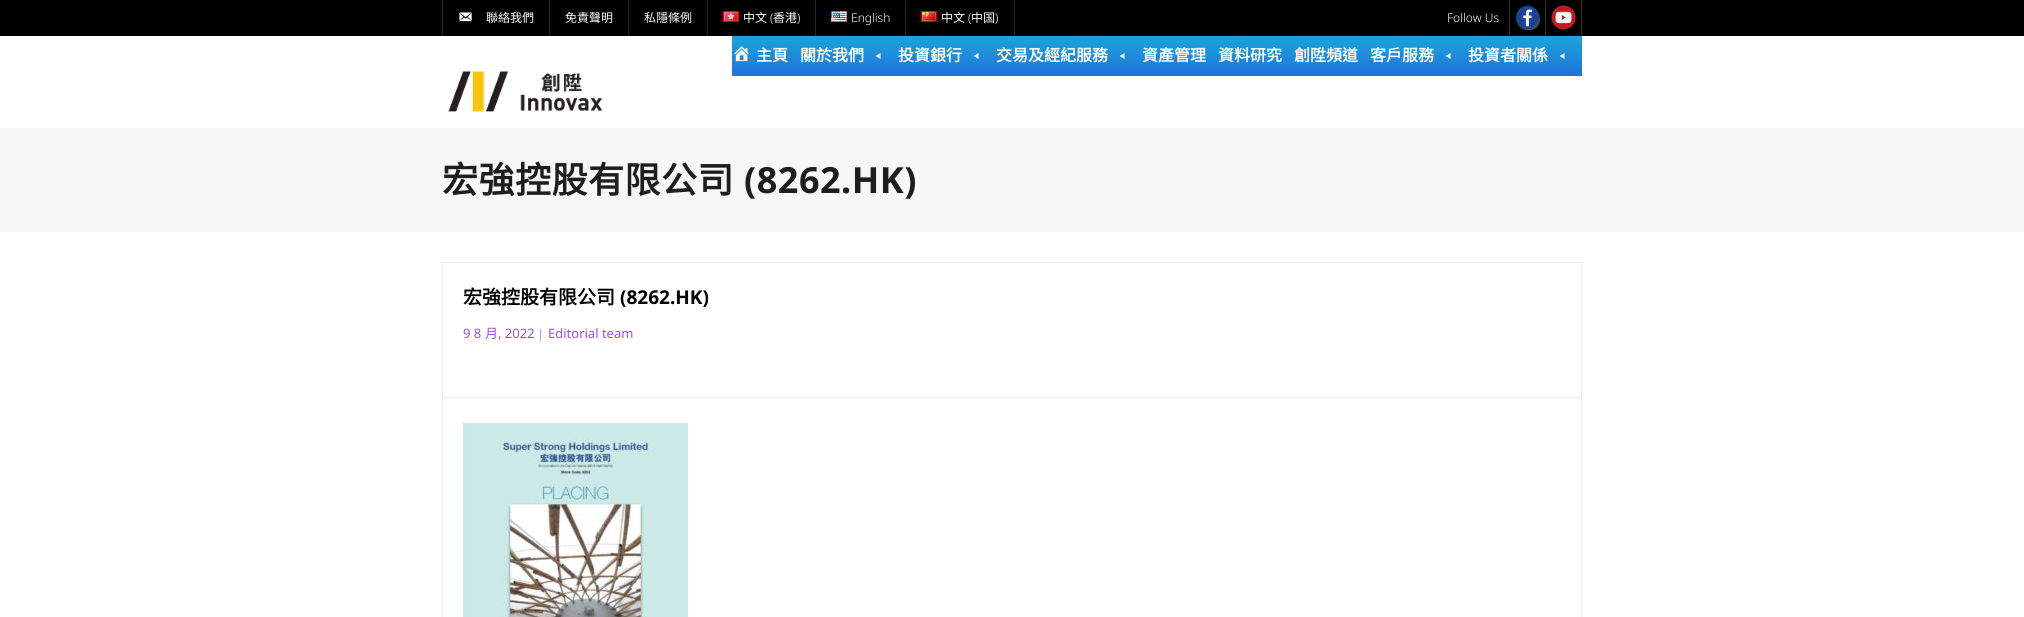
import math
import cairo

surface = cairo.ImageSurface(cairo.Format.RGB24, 2024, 617)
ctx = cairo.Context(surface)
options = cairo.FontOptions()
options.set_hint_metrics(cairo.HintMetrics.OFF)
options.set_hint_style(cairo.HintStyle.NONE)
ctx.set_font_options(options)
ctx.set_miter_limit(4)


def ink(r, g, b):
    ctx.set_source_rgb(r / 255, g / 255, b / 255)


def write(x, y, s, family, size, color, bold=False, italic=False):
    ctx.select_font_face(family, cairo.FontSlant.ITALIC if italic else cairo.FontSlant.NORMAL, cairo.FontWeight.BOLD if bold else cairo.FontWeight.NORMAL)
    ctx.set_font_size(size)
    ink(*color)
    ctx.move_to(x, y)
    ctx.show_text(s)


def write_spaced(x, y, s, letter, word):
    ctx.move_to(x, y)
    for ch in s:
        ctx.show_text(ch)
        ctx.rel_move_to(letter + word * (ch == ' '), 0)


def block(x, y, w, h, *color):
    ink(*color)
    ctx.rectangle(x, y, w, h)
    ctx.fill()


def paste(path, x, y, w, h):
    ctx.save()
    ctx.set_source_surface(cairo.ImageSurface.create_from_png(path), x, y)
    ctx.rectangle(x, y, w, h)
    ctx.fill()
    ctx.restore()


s1 = dict(family="Noto Sans CJK HK", size=12, color=(255, 255, 255))
s2 = dict(family="Noto Sans Light", size=12, color=(255, 255, 255))
s3 = dict(family="Noto Sans CJK HK", size=16, color=(255, 255, 255), bold=True)
s4 = dict(family="Noto Sans CJK HK", size=19, color=(0, 0, 0), bold=True)
s5 = dict(family="Noto Sans", size=19, color=(0, 0, 0), bold=True)
s6 = dict(family="Noto Sans", size=13, color=(154, 78, 232))
s7 = dict(family="Noto Sans CJK HK", size=13, color=(154, 78, 232))
s8 = dict(family="Liberation Serif", size=13, color=(73, 142, 202))

ink(255, 255, 255)
ctx.paint()
block(0, 0, 2024, 36, 0, 0, 0)
block(442, 0, 1, 36, 35, 35, 35)
paste("pic1.png", 459, 12, 13, 10)
write(486, 22, "聯絡我們", **s1)
block(549, 0, 1, 36, 35, 35, 35)
write(565, 22, "免責聲明", **s1)
block(628, 0, 1, 36, 35, 35, 35)
write(644, 22, "私隱條例", **s1)
block(707, 0, 1, 36, 35, 35, 35)
paste("pic2.png", 723, 11, 16, 11)
write(743, 22, "中文", **s1)
write(770, 22, "(", **s2)
write(773, 22, "香港", **s1)
write(797, 22, ")", **s2)
block(815, 0, 1, 36, 35, 35, 35)
paste("pic3.png", 831, 11, 16, 11)
write(851, 22, "English", **s2)
block(1014, 0, 1, 36, 35, 35, 35)
block(905, 0, 1, 36, 35, 35, 35)
paste("pic4.png", 921, 11, 16, 11)
write(941, 22, "中文", **s1)
write(968, 22, "(", **s2)
write(971, 22, "中国", **s1)
write(995, 22, ")", **s2)
write(1447, 22, "Follow Us", **s2)
paste("pic5.png", 1515, 5, 25, 25)
block(1509, 0, 1, 35, 51, 51, 51)
paste("pic6.png", 1551, 5, 25, 25)
block(1581, 0, 1, 35, 51, 51, 51)
block(1545, 0, 1, 35, 51, 51, 51)
gradient = cairo.LinearGradient(1157, 36, 1157, 76)
gradient.add_color_stop_rgba(0, 0.118, 0.643, 0.855, 1)
gradient.add_color_stop_rgba(1, 0.118, 0.451, 0.855, 1)
ctx.set_source(gradient)
ctx.rectangle(732, 36, 850, 40)
ctx.fill()
paste("pic7.png", 734, 46, 15, 16)
write(756, 61, "主頁", **s3)
write(800, 61, "關於我們", **s3)
ctx.new_path()
ctx.move_to(880.5, 59)
ctx.line_to(875.5, 56)
ctx.line_to(880.5, 53)
ctx.close_path()
ctx.fill()
write(898, 61, "投資銀行", **s3)
ctx.new_path()
ctx.move_to(978.5, 59)
ctx.line_to(973.5, 56)
ctx.line_to(978.5, 53)
ctx.close_path()
ctx.fill()
write(996, 61, "交易及經紀服務", **s3)
ctx.new_path()
ctx.move_to(1124.5, 59)
ctx.line_to(1119.5, 56)
ctx.line_to(1124.5, 53)
ctx.close_path()
ctx.fill()
write(1142, 61, "資產管理", **s3)
write(1218, 61, "資料研究", **s3)
write(1294, 61, "創陞頻道", **s3)
write(1370, 61, "客戶服務", **s3)
ctx.new_path()
ctx.move_to(1450.5, 59)
ctx.line_to(1445.5, 56)
ctx.line_to(1450.5, 53)
ctx.close_path()
ctx.fill()
write(1468, 61, "投資者關係", **s3)
ctx.new_path()
ctx.move_to(1564.5, 59)
ctx.line_to(1559.5, 56)
ctx.line_to(1564.5, 53)
ctx.close_path()
ctx.fill()
paste("pic8.png", 448, 70, 155, 42)
block(0, 128, 2024, 104, 247, 247, 247)
ctx.set_font_size(36)
ink(30, 30, 30)
write_spaced(442, 193, "宏強控股有限公司", 0.5, 0)
ctx.select_font_face("Noto Sans", cairo.FontSlant.NORMAL, cairo.FontWeight.BOLD)
write_spaced(744, 193, "(8262.HK)", 0.5, 0)
ctx.rectangle(442.5, 262.5, 1139, 135)
ink(238, 238, 238)
ctx.set_line_width(1)
ctx.stroke()
write(463, 304, "宏強控股有限公司", **s4)
write(620, 304, "(8262.HK)", **s5)
write(463, 338, "9 8", **s6)
write(485, 338, "月", **s7)
write(498, 338, ", 2022", **s6)
write(539, 338, "|", **s8)
write(548, 338, "Editorial team", **s6)
block(1581, 398, 1, 219, 238, 238, 238)
block(442, 398, 1, 219, 238, 238, 238)
paste("pic9.png", 463, 423, 225, 194)
surface.write_to_png("screenshot.png")
